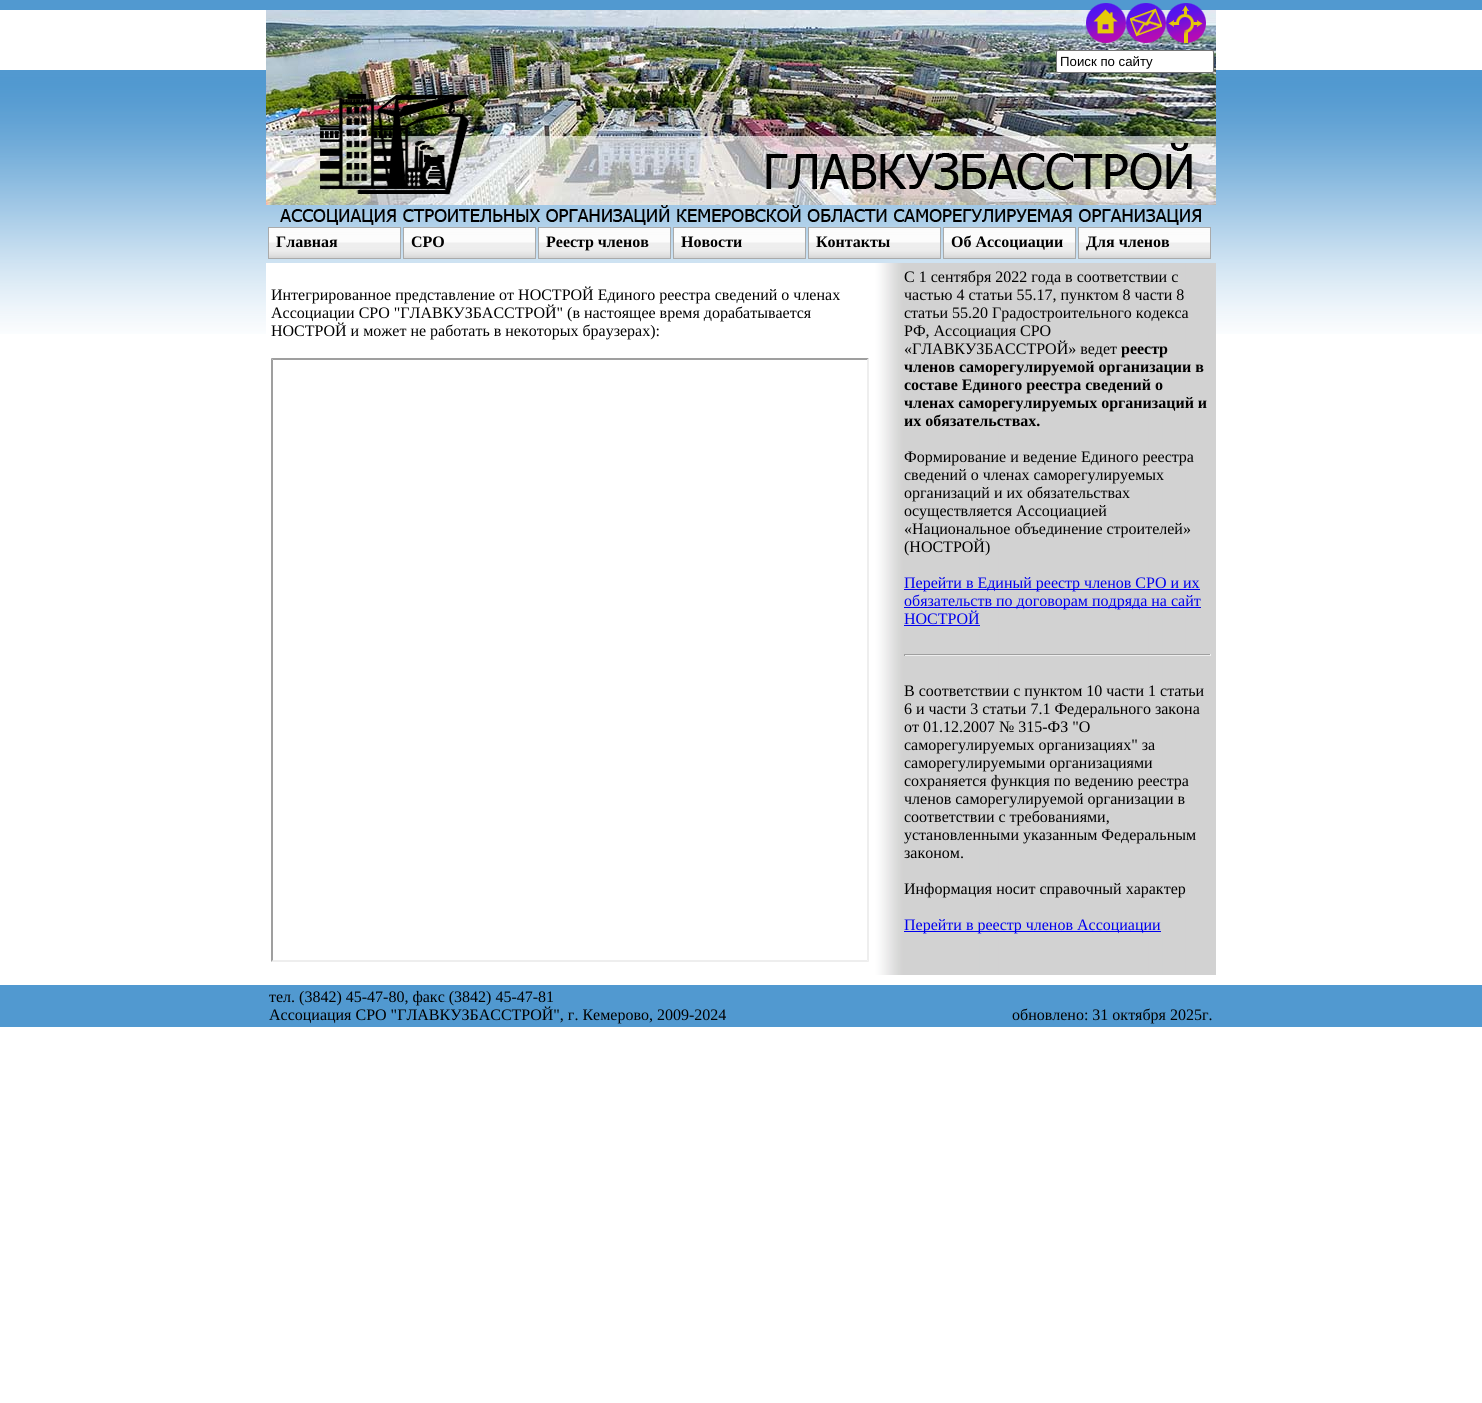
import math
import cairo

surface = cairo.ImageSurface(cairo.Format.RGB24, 1482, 1403)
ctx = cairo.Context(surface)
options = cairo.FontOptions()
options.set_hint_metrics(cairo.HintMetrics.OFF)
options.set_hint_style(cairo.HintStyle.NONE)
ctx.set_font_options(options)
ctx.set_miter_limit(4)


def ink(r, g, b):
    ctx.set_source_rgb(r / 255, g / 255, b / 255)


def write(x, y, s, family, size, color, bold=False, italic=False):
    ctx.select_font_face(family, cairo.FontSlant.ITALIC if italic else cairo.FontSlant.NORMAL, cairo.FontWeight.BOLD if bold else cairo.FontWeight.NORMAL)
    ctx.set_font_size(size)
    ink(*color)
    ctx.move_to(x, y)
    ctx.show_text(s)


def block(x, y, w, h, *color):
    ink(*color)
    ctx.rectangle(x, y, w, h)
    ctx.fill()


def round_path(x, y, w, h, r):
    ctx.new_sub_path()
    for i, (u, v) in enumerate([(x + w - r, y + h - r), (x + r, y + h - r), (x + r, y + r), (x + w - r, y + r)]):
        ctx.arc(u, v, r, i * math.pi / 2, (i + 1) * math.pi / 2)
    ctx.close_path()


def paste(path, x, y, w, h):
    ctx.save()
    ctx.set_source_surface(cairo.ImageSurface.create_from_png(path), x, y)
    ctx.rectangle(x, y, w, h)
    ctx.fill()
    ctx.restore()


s1 = dict(family="Liberation Sans", size=13.25, color=(0, 0, 0))
s2 = dict(family="Liberation Serif", size=16, color=(0, 0, 0), bold=True)
s3 = dict(family="Liberation Serif", size=16, color=(0, 0, 0))
s4 = dict(family="Liberation Serif", size=16, color=(0, 0, 238))

ink(255, 255, 255)
ctx.paint()
paste("pic1.png", 0, 70, 1482, 264)
block(0, 0, 1482, 10, 81, 153, 208)
paste("pic2.png", 266, 10, 950, 195)
paste("pic3.png", 1086, 3, 40, 40)
paste("pic4.png", 1126, 3, 40, 40)
paste("pic5.png", 1166, 3, 40, 40)
ink(255, 255, 255)
round_path(1056.5, 50.5, 157, 22, 1.5)
ctx.fill_preserve()
ink(118, 118, 118)
ctx.set_line_width(1)
ctx.stroke()
write(1060, 66, "Поиск по сайту", **s1)
paste("pic6.png", 280, 94, 921, 131)
paste("pic7.png", 269, 228, 131, 30)
ctx.rectangle(268.5, 227.5, 132, 31)
ink(170, 170, 170)
ctx.stroke()
write(276, 247, "Главная", **s2)
paste("pic7.png", 404, 228, 131, 30)
ctx.rectangle(403.5, 227.5, 132, 31)
ink(170, 170, 170)
ctx.stroke()
write(411, 247, "СРО", **s2)
paste("pic7.png", 539, 228, 131, 30)
ctx.rectangle(538.5, 227.5, 132, 31)
ink(170, 170, 170)
ctx.stroke()
write(546, 247, "Реестр членов", **s2)
paste("pic7.png", 674, 228, 131, 30)
ctx.rectangle(673.5, 227.5, 132, 31)
ink(170, 170, 170)
ctx.stroke()
write(681, 247, "Новости", **s2)
paste("pic7.png", 809, 228, 131, 30)
ctx.rectangle(808.5, 227.5, 132, 31)
ink(170, 170, 170)
ctx.stroke()
write(816, 247, "Контакты", **s2)
paste("pic7.png", 944, 228, 131, 30)
ctx.rectangle(943.5, 227.5, 132, 31)
ink(170, 170, 170)
ctx.stroke()
write(951, 247, "Об Ассоциации", **s2)
paste("pic7.png", 1079, 228, 131, 30)
ctx.rectangle(1078.5, 227.5, 132, 31)
ink(170, 170, 170)
ctx.stroke()
write(1086, 247, "Для членов", **s2)
paste("pic8.png", 266, 263, 950, 712)
write(271, 300, "Интегрированное представление от НОСТРОЙ Единого реестра сведений о членах", **s3)
write(271, 318, "Ассоциации СРО \"ГЛАВКУЗБАССТРОЙ\" (в настоящее время дорабатывается", **s3)
write(271, 336, "НОСТРОЙ и может не работать в некоторых браузерах):", **s3)
ink(159, 159, 159)
ctx.new_path()
ctx.move_to(271, 358)
ctx.line_to(869, 358)
ctx.line_to(867, 360)
ctx.line_to(273, 360)
ctx.close_path()
ctx.fill()
ink(238, 238, 238)
ctx.new_path()
ctx.move_to(869, 358)
ctx.line_to(869, 962)
ctx.line_to(867, 960)
ctx.line_to(867, 360)
ctx.close_path()
ctx.fill()
ctx.new_path()
ctx.move_to(869, 962)
ctx.line_to(271, 962)
ctx.line_to(273, 960)
ctx.line_to(867, 960)
ctx.close_path()
ctx.fill()
ink(159, 159, 159)
ctx.new_path()
ctx.move_to(271, 962)
ctx.line_to(271, 358)
ctx.line_to(273, 360)
ctx.line_to(273, 960)
ctx.close_path()
ctx.fill()
write(904, 282, "С 1 сентября 2022 года в соответствии с", **s3)
write(904, 300, "частью 4 статьи 55.17, пунктом 8 части 8", **s3)
write(904, 318, "статьи 55.20 Градостроительного кодекса", **s3)
write(904, 336, "РФ, Ассоциация СРО", **s3)
write(904, 354, "«ГЛАВКУЗБАССТРОЙ» ведет", **s3)
write(1121, 354, "реестр", **s2)
write(904, 372, "членов саморегулируемой организации в", **s2)
write(904, 390, "составе Единого реестра сведений о", **s2)
write(904, 408, "членах саморегулируемых организаций и", **s2)
write(904, 426, "их обязательствах.", **s2)
write(904, 462, "Формирование и ведение Единого реестра", **s3)
write(904, 480, "сведений о членах саморегулируемых", **s3)
write(904, 498, "организаций и их обязательствах", **s3)
write(904, 516, "осуществляется Ассоциацией", **s3)
write(904, 534, "«Национальное объединение строителей»", **s3)
write(904, 552, "(НОСТРОЙ)", **s3)
block(904, 589, 296, 1, 0, 0, 238)
write(904, 588, "Перейти в Единый реестр членов СРО и их", **s4)
block(904, 607, 297, 1, 0, 0, 238)
write(904, 606, "обязательств по договорам подряда на сайт", **s4)
write(904, 624, "НОСТРОЙ", **s4)
block(904, 625, 76, 1, 0, 0, 238)
block(904, 654, 307, 1, 159, 159, 159)
block(1210, 654, 1, 2, 238, 238, 238)
block(904, 655, 307, 1, 238, 238, 238)
block(904, 654, 1, 2, 159, 159, 159)
write(904, 696, "В соответствии с пунктом 10 части 1 статьи", **s3)
write(904, 714, "6 и части 3 статьи 7.1 Федерального закона", **s3)
write(904, 732, "от 01.12.2007 № 315-ФЗ \"О", **s3)
write(904, 750, "саморегулируемых организациях\" за", **s3)
write(904, 768, "саморегулируемыми организациями", **s3)
write(904, 786, "сохраняется функция по ведению реестра", **s3)
write(904, 804, "членов саморегулируемой организации в", **s3)
write(904, 822, "соответствии с требованиями,", **s3)
write(904, 840, "установленными указанным Федеральным", **s3)
write(904, 858, "законом.", **s3)
write(904, 894, "Информация носит справочный характер", **s3)
block(904, 931, 257, 1, 0, 0, 238)
write(904, 930, "Перейти в реестр членов Ассоциации", **s4)
block(0, 985, 1482, 42, 81, 153, 208)
write(269, 1002, "тел. (3842) 45-47-80, факс (3842) 45-47-81", **s3)
write(269, 1020, "Ассоциация СРО \"ГЛАВКУЗБАССТРОЙ\", г. Кемерово, 2009-2024", **s3)
write(1012, 1020, "обновлено: 31 октября 2025г.", **s3)
surface.write_to_png("screenshot.png")
